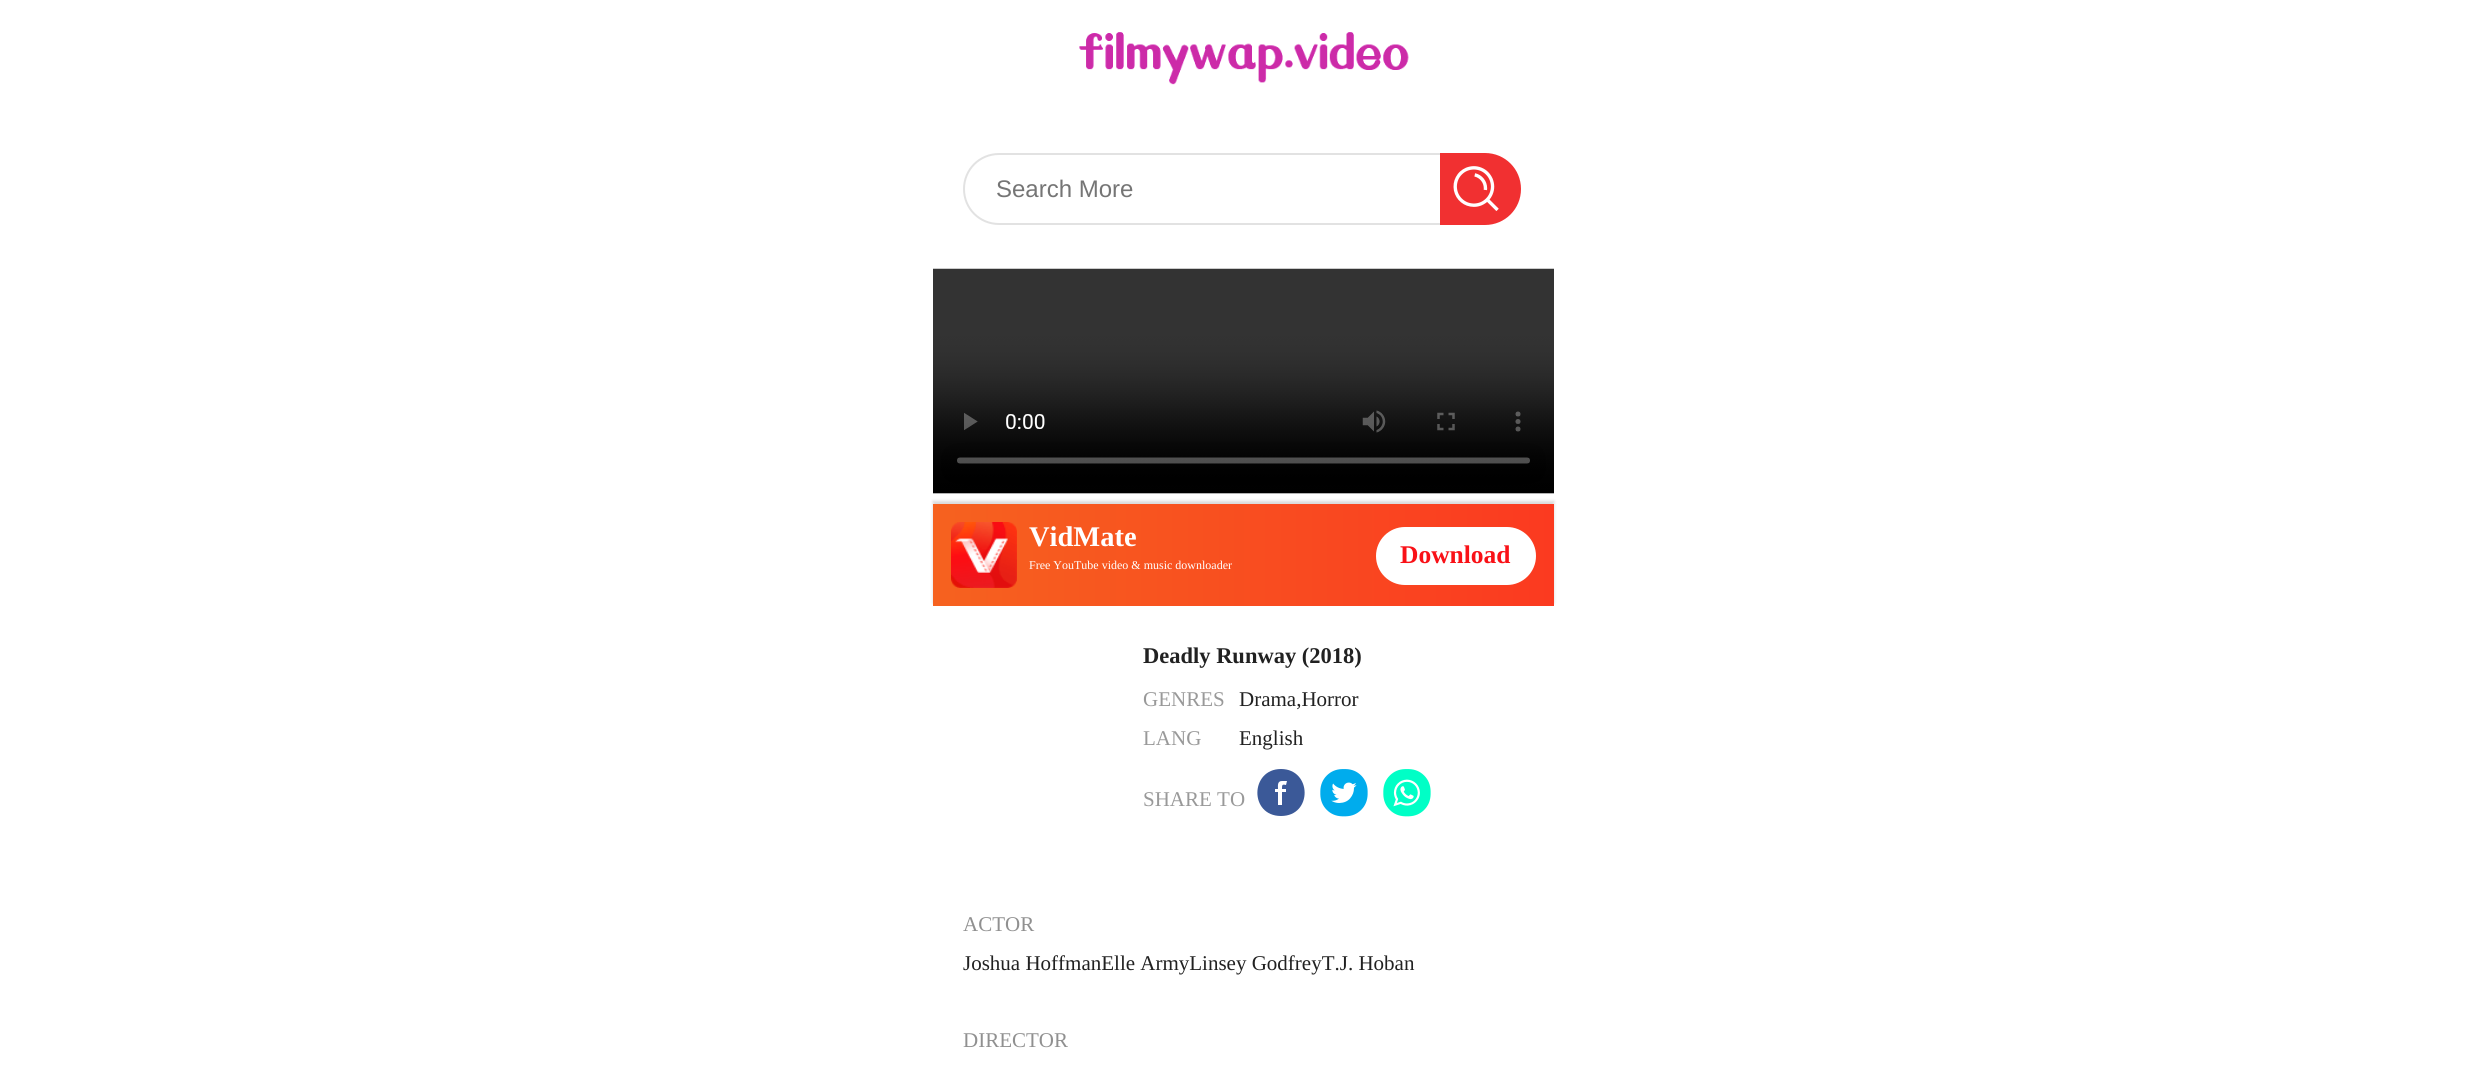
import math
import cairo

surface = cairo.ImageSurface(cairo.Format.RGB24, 2487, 1081)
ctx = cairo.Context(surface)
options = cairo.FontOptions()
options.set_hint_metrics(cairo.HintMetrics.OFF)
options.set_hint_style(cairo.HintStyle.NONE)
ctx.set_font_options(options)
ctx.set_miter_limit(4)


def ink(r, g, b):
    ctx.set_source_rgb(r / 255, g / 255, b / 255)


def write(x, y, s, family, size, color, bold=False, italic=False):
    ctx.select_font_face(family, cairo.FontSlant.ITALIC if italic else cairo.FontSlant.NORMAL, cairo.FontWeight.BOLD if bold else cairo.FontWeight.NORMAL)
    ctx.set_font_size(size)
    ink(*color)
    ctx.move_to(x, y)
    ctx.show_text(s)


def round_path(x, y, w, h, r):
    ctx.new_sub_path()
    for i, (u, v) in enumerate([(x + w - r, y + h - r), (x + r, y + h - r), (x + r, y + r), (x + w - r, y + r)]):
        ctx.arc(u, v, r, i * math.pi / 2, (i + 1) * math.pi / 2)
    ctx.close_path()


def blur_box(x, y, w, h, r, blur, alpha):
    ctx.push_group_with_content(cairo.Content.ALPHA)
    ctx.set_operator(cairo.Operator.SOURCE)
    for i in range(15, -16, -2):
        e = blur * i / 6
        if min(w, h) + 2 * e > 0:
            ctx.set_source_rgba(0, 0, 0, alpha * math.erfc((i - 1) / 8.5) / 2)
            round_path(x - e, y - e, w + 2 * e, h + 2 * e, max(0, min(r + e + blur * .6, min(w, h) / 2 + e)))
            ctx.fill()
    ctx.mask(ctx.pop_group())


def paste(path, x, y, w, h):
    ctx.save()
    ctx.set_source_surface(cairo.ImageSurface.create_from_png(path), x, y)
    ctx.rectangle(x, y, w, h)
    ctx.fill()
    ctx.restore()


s1 = dict(family="Liberation Sans", size=24, color=(117, 117, 117))
s2 = dict(family="Liberation Serif", size=28.5, color=(255, 255, 255), bold=True)
s3 = dict(family="Liberation Serif", size=12, color=(255, 255, 255))
s4 = dict(family="Liberation Serif", size=25.5, color=(249, 17, 23), bold=True)
s5 = dict(family="Liberation Serif", size=22.5, color=(33, 33, 33), bold=True)
s6 = dict(family="Liberation Serif", size=21, color=(153, 153, 153))
s7 = dict(family="Liberation Serif", size=21, color=(33, 33, 33))
s8 = dict(family="Liberation Serif", size=21, color=(144, 144, 144))

ink(255, 255, 255)
ctx.paint()
paste("pic1.png", 1079, 32, 330, 53)
ctx.new_path()
ctx.move_to(999, 154)
ctx.line_to(1459, 154)
ctx.line_to(1459, 224)
ctx.line_to(999, 224)
ctx.curve_to(979.5, 224, 964, 208.5, 964, 189)
ctx.curve_to(964, 169.5, 979.5, 154, 999, 154)
ctx.close_path()
ink(226, 226, 226)
ctx.stroke()
write(996, 197, "Search More", **s1)
ink(241, 48, 49)
ctx.new_path()
ctx.move_to(1440, 153)
ctx.line_to(1485, 153)
ctx.curve_to(1505, 153, 1521, 169, 1521, 189)
ctx.curve_to(1521, 209, 1505, 225, 1485, 225)
ctx.line_to(1440, 225)
ctx.close_path()
ctx.fill()
paste("pic2.png", 1453, 166, 46, 45)
paste("pic3.png", 933, 268, 621, 226)
ink(0, 0, 0)
blur_box(933, 501, 621, 102, 0, 1.5, 0.15)
gradient = cairo.LinearGradient(933, 555, 1554, 555)
gradient.add_color_stop_rgba(0, 0.965, 0.384, 0.122, 1)
gradient.add_color_stop_rgba(1, 0.984, 0.227, 0.125, 1)
ctx.set_source(gradient)
ctx.rectangle(933, 504, 621, 102)
ctx.fill()
paste("pic4.png", 951, 522, 66, 66)
write(1029, 546, "VidMate", **s2)
write(1029, 569, "Free YouTube video & music downloader", **s3)
round_path(1376, 527, 160, 58, 29)
ctx.fill()
write(1400, 563, "Download", **s4)
write(1143, 663, "Deadly Runway (2018)", **s5)
write(1143, 706, "GENRES", **s6)
write(1239, 706, "Drama,Horror", **s7)
write(1143, 745, "LANG", **s6)
write(1239, 745, "English", **s7)
write(1143, 806, "SHARE TO", **s6)
ink(59, 89, 152)
ctx.new_path()
ctx.move_to(1281, 816)
ctx.curve_to(1313, 816, 1312, 769, 1281, 769)
ctx.curve_to(1250, 769, 1249, 816, 1281, 816)
ctx.close_path()
ctx.move_to(1275, 789)
ctx.line_to(1278, 789)
ctx.curve_to(1278, 786, 1277, 781, 1282, 781)
ctx.line_to(1287, 781)
ctx.line_to(1286, 785)
ctx.curve_to(1282, 784, 1282, 785, 1282, 789)
ctx.line_to(1286, 789)
ctx.line_to(1286, 792)
ctx.line_to(1282, 792)
ctx.line_to(1282, 805)
ctx.line_to(1278, 805)
ctx.line_to(1278, 792)
ctx.line_to(1275, 792)
ctx.close_path()
ctx.fill()
paste("pic5.png", 1320, 769, 48, 48)
paste("pic6.png", 1383, 769, 48, 48)
write(963, 931, "ACTOR", **s8)
write(963, 970, "Joshua HoffmanElle ArmyLinsey GodfreyT.J. Hoban", **s7)
write(963, 1047, "DIRECTOR", **s8)
surface.write_to_png("screenshot.png")
